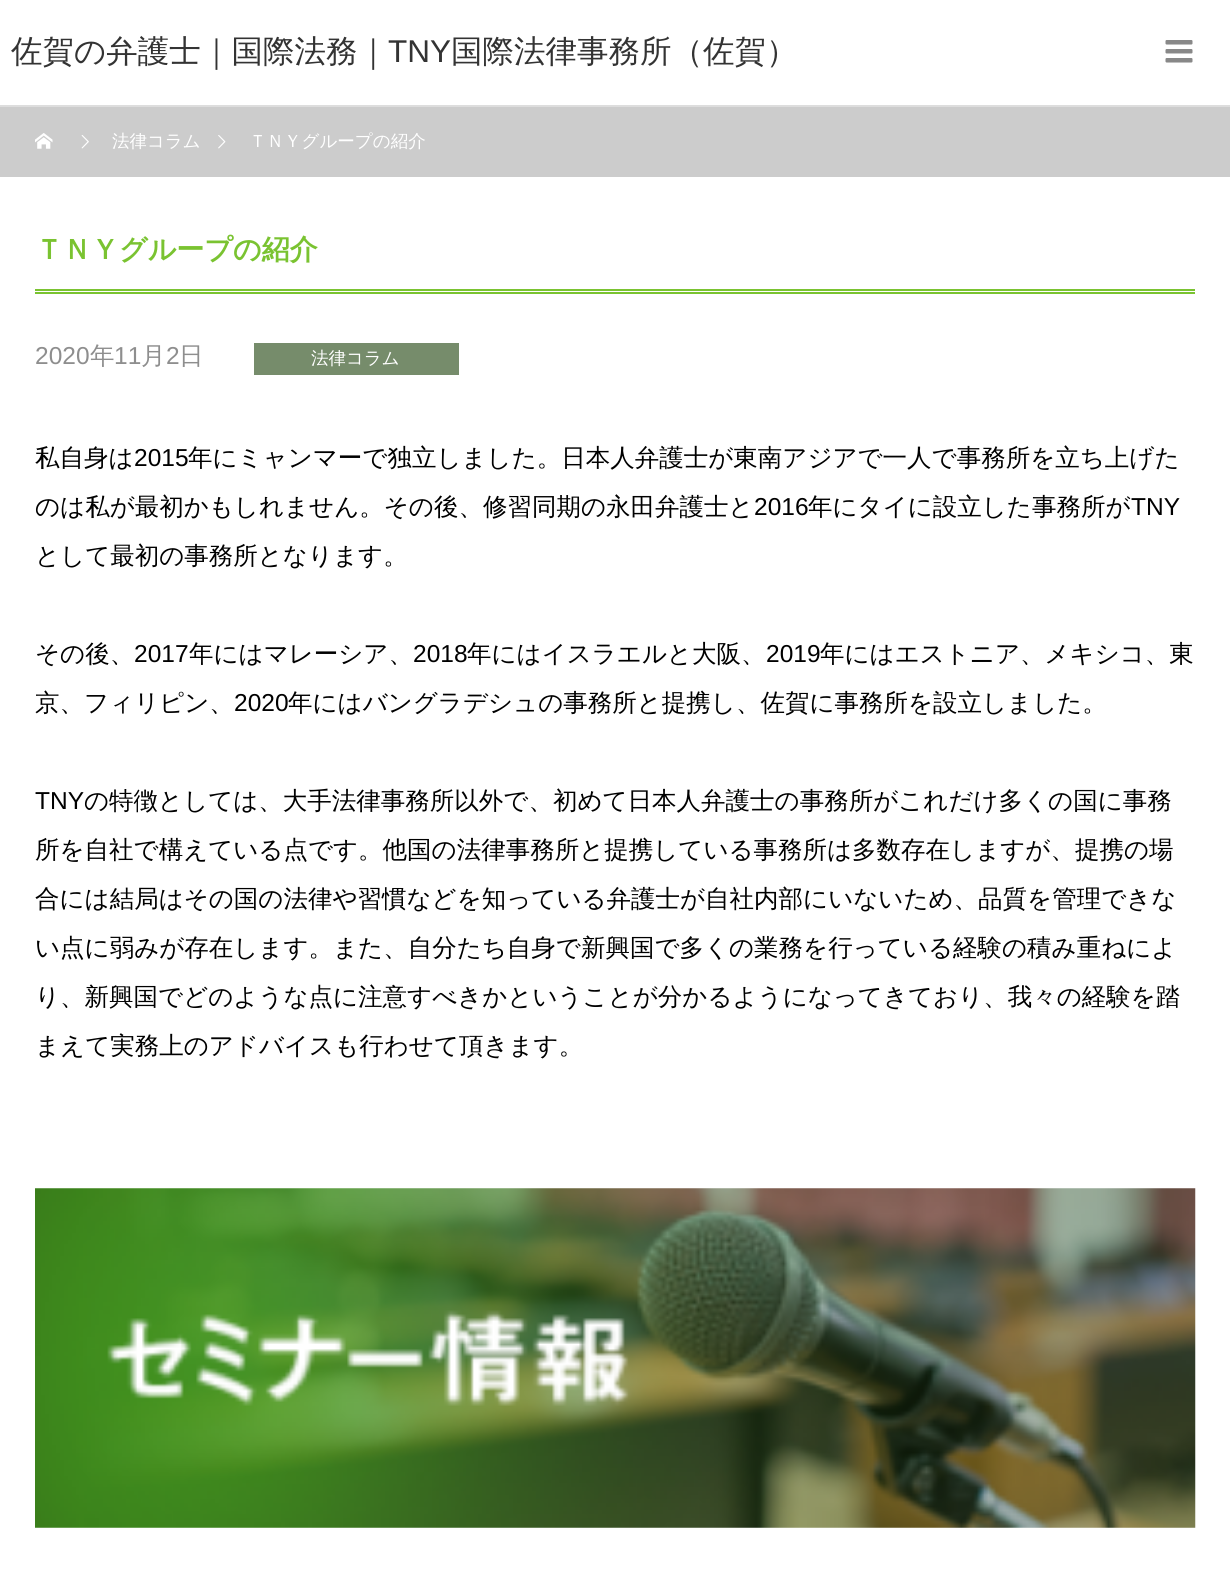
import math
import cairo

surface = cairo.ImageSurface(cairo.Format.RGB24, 1230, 1578)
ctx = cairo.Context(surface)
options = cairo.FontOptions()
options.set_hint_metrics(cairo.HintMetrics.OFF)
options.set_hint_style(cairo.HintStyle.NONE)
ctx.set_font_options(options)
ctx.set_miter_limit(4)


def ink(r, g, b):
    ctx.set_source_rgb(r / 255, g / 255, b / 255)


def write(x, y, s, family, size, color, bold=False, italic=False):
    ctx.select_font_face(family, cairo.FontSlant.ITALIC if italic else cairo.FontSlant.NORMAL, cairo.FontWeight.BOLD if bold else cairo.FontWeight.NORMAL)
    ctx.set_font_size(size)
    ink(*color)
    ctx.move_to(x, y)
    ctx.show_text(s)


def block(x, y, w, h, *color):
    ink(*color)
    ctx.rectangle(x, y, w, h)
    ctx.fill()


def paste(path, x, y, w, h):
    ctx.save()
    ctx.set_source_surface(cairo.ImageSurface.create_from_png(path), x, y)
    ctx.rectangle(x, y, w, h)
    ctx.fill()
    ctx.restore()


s1 = dict(family="WenQuanYi Zen Hei Medium", size=31.5, color=(51, 51, 51))
s2 = dict(family="Liberation Sans", size=31.5, color=(51, 51, 51))
s3 = dict(family="WenQuanYi Zen Hei Medium", size=17.5, color=(255, 255, 255))
s4 = dict(family="WenQuanYi Zen Hei", size=28, color=(122, 195, 49), bold=True)
s5 = dict(family="Liberation Sans", size=24.5, color=(142, 142, 142))
s6 = dict(family="WenQuanYi Zen Hei Medium", size=24.5, color=(142, 142, 142))
s7 = dict(family="WenQuanYi Zen Hei Medium", size=24.5, color=(0, 0, 0))
s8 = dict(family="Liberation Sans", size=24.5, color=(0, 0, 0))

ink(255, 255, 255)
ctx.paint()
block(0, 105, 1230, 2, 221, 221, 221)
write(11, 62, "佐賀の弁護士｜国際法務｜", **s1)
write(388, 62, "TNY", **s2)
write(451, 62, "国際法律事務所（佐賀）", **s1)
paste("pic1.png", 1165, 40, 28, 23)
block(0, 107, 1230, 70, 204, 204, 204)
paste("pic2.png", 35, 133, 18, 16)
paste("pic3.png", 81, 135, 8, 14)
write(112, 147, "法律コラム", **s3)
paste("pic4.png", 218, 135, 8, 14)
write(249, 147, "ＴＮＹグループの紹介", **s3)
block(35, 289, 1160, 2, 122, 195, 49)
block(35, 292, 1160, 2, 122, 195, 49)
write(35, 259, "ＴＮＹグループの紹介", **s4)
write(35, 364, "2020", **s5)
write(90, 364, "年", **s6)
write(114, 364, "11", **s5)
write(141, 364, "月", **s6)
write(166, 364, "2", **s5)
write(179, 364, "日", **s6)
block(254, 343, 205, 32, 118, 140, 107)
write(311, 364, "法律コラム", **s3)
write(35, 466, "私自身は", **s7)
write(134, 466, "2015", **s8)
write(188, 466, "年にミャンマーで独立しました。日本人弁護士が東南アジアで一人で事務所を立ち上げた", **s7)
write(35, 515, "のは私が最初かもしれません。その後、修習同期の永田弁護士と", **s7)
write(754, 515, "2016", **s8)
write(808, 515, "年にタイに設立した事務所が", **s7)
write(1131, 515, "TNY", **s8)
write(35, 564, "として最初の事務所となります。", **s7)
write(35, 662, "その後、", **s7)
write(134, 662, "2017", **s8)
write(189, 662, "年にはマレーシア、", **s7)
write(413, 662, "2018", **s8)
write(467, 662, "年にはイスラエルと大阪、", **s7)
write(766, 662, "2019", **s8)
write(820, 662, "年にはエストニア、メキシコ、東", **s7)
write(35, 711, "京、フィリピン、", **s7)
write(234, 711, "2020", **s8)
write(288, 711, "年にはバングラデシュの事務所と提携し、佐賀に事務所を設立しました。", **s7)
write(35, 809, "TNY", **s8)
write(84, 809, "の特徴としては、大手法律事務所以外で、初めて日本人弁護士の事務所がこれだけ多くの国に事務", **s7)
write(35, 858, "所を自社で構えている点です。他国の法律事務所と提携している事務所は多数存在しますが、提携の場", **s7)
write(35, 907, "合には結局はその国の法律や習慣などを知っている弁護士が自社内部にいないため、品質を管理できな", **s7)
write(35, 956, "い点に弱みが存在します。また、自分たち自身で新興国で多くの業務を行っている経験の積み重ねによ", **s7)
write(35, 1005, "り、新興国でどのような点に注意すべきかということが分かるようになってきており、我々の経験を踏", **s7)
write(35, 1054, "まえて実務上のアドバイスも行わせて頂きます。", **s7)
paste("pic5.png", 35, 1188, 1161, 340)
surface.write_to_png("screenshot.png")
